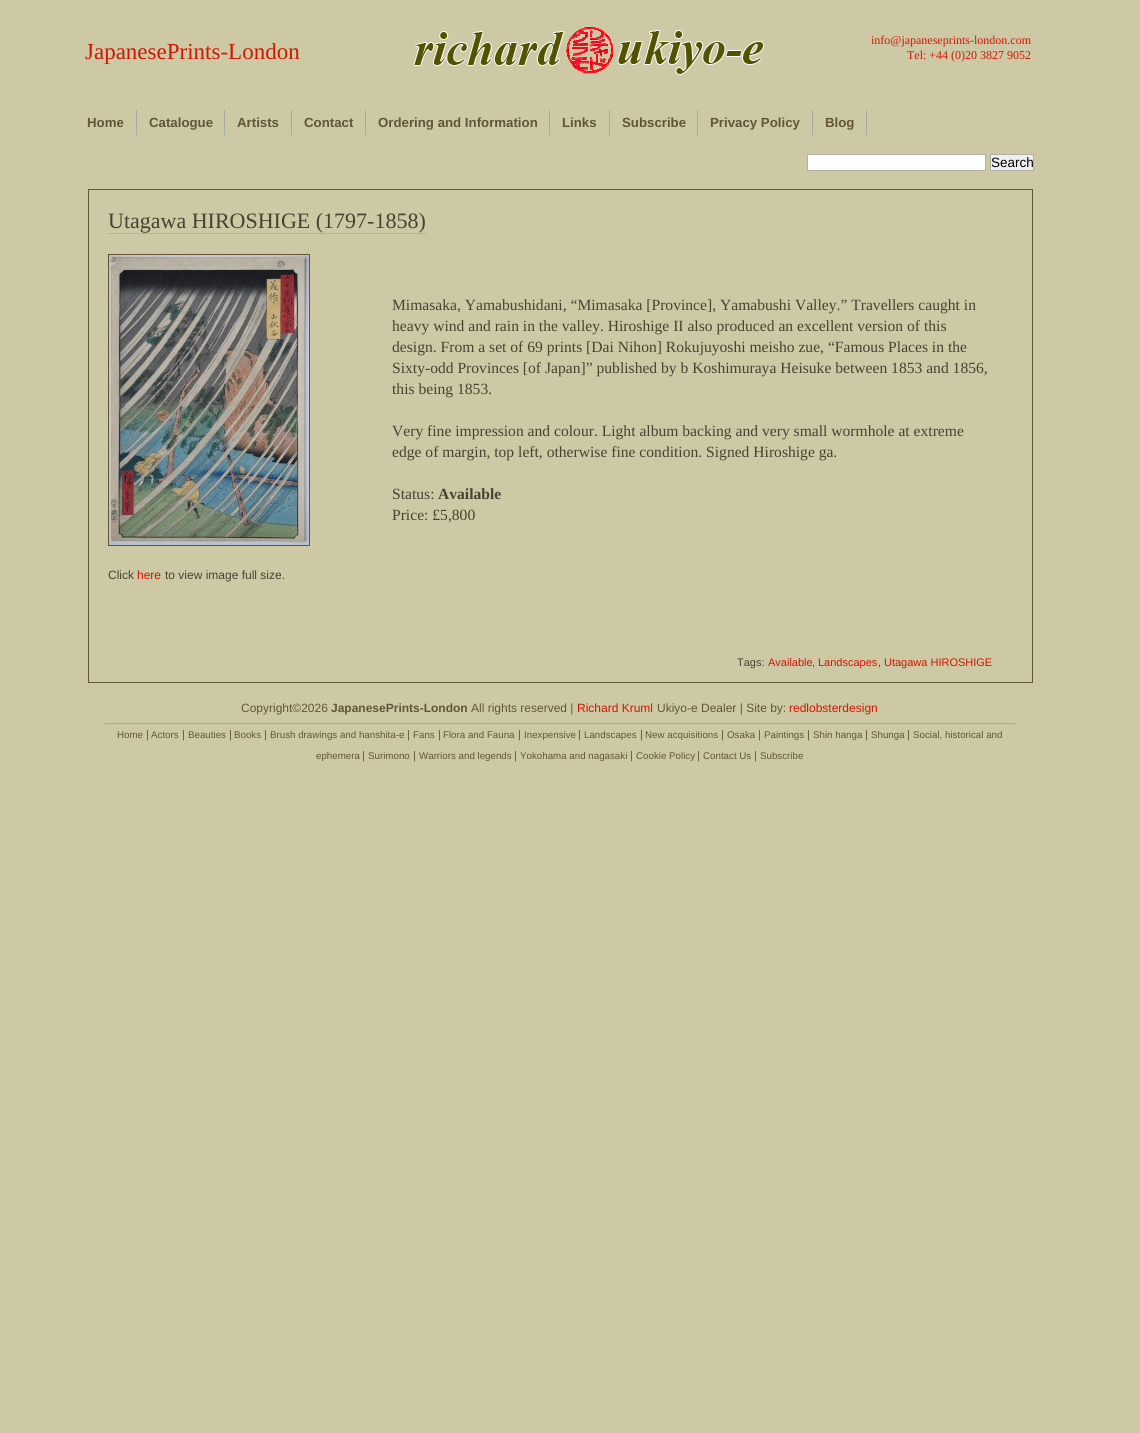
import math
import cairo

surface = cairo.ImageSurface(cairo.Format.RGB24, 1140, 1433)
ctx = cairo.Context(surface)
options = cairo.FontOptions()
options.set_hint_metrics(cairo.HintMetrics.OFF)
options.set_hint_style(cairo.HintStyle.NONE)
ctx.set_font_options(options)
ctx.set_miter_limit(4)


def ink(r, g, b):
    ctx.set_source_rgb(r / 255, g / 255, b / 255)


def write(x, y, s, family, size, color, bold=False, italic=False):
    ctx.select_font_face(family, cairo.FontSlant.ITALIC if italic else cairo.FontSlant.NORMAL, cairo.FontWeight.BOLD if bold else cairo.FontWeight.NORMAL)
    ctx.set_font_size(size)
    ink(*color)
    ctx.move_to(x, y)
    ctx.show_text(s)


def block(x, y, w, h, *color):
    ink(*color)
    ctx.rectangle(x, y, w, h)
    ctx.fill()


def paste(path, x, y, w, h):
    ctx.save()
    ctx.set_source_surface(cairo.ImageSurface.create_from_png(path), x, y)
    ctx.rectangle(x, y, w, h)
    ctx.fill()
    ctx.restore()


s1 = dict(family="Liberation Serif", size=23, color=(210, 22, 0))
s2 = dict(family="Liberation Serif", size=12, color=(210, 22, 0))
s3 = dict(family="Liberation Sans", size=13.25, color=(99, 85, 55), bold=True)
s4 = dict(family="Liberation Sans", size=13.5, color=(0, 0, 0))
s5 = dict(family="Liberation Serif", size=22, color=(74, 65, 49))
s6 = dict(family="Liberation Serif", size=15.6, color=(74, 65, 49))
s7 = dict(family="Liberation Serif", size=15.6, color=(74, 65, 49), bold=True)
s8 = dict(family="Liberation Sans", size=12, color=(74, 65, 49))
s9 = dict(family="Liberation Sans", size=12, color=(210, 22, 0))
s10 = dict(family="Liberation Sans", size=11, color=(74, 65, 49))
s11 = dict(family="Liberation Sans", size=11, color=(210, 22, 0))
s12 = dict(family="Liberation Sans", size=12, color=(99, 85, 55))
s13 = dict(family="Liberation Sans", size=12, color=(99, 85, 55), bold=True)
s14 = dict(family="Liberation Sans", size=9.75, color=(99, 85, 55))
s15 = dict(family="Liberation Sans", size=11, color=(99, 85, 55))

ink(205, 201, 165)
ctx.paint()
paste("pic1.png", 413, 27, 352, 48)
write(85, 59, "JapanesePrints-London", **s1)
write(871, 44, "info@japaneseprints-london.com", **s2)
write(907, 59, "Tel: +44 (0)20 3827 9052", **s2)
block(136, 110, 1, 25, 169, 169, 169)
write(87, 127, "Home", **s3)
block(224, 110, 1, 25, 169, 169, 169)
write(149, 127, "Catalogue", **s3)
block(291, 110, 1, 25, 169, 169, 169)
write(237, 127, "Artists", **s3)
block(365, 110, 1, 25, 169, 169, 169)
write(304, 127, "Contact", **s3)
block(549, 110, 1, 25, 169, 169, 169)
write(378, 127, "Ordering and Information", **s3)
block(609, 110, 1, 25, 169, 169, 169)
write(562, 127, "Links", **s3)
block(697, 110, 1, 25, 169, 169, 169)
write(622, 127, "Subscribe", **s3)
block(812, 110, 1, 25, 169, 169, 169)
write(710, 127, "Privacy Policy", **s3)
block(866, 110, 1, 25, 169, 169, 169)
write(825, 127, "Blog", **s3)
ink(255, 255, 255)
ctx.rectangle(807.5, 154.5, 178, 16)
ctx.fill_preserve()
ink(178, 176, 164)
ctx.set_line_width(1)
ctx.stroke()
ink(239, 239, 239)
ctx.rectangle(990.5, 154.5, 43, 16)
ctx.fill_preserve()
ink(178, 176, 164)
ctx.stroke()
write(991, 167, "Search", **s4)
ctx.rectangle(88.5, 189.5, 944, 493)
ink(99, 85, 55)
ctx.stroke()
write(108, 228, "Utagawa HIROSHIGE (1797-1858)", **s5)
block(108, 233, 318, 1, 178, 176, 164)
write(392, 310, "Mimasaka, Yamabushidani, “Mimasaka [Province], Yamabushi Valley.” Travellers caught in", **s6)
write(392, 331, "heavy wind and rain in the valley. Hiroshige II also produced an excellent version of this", **s6)
write(392, 352, "design. From a set of 69 prints [Dai Nihon] Rokujuyoshi meisho zue, “Famous Places in the", **s6)
write(392, 373, "Sixty-odd Provinces [of Japan]” published by b Koshimuraya Heisuke between 1853 and 1856,", **s6)
write(392, 394, "this being 1853.", **s6)
write(392, 436, "Very fine impression and colour. Light album backing and very small wormhole at extreme", **s6)
write(392, 457, "edge of margin, top left, otherwise fine condition. Signed Hiroshige ga.", **s6)
write(392, 499, "Status:", **s6)
write(438, 499, "Available", **s7)
write(392, 520, "Price: £5,800", **s6)
ctx.rectangle(108.5, 254.5, 201, 291)
ink(99, 85, 55)
ctx.stroke()
paste("pic2.png", 109, 255, 200, 290)
write(108, 579, "Click", **s8)
write(137, 579, "here", **s9)
write(165, 579, "to view image full size.", **s8)
write(737, 666, "Tags:", **s10)
write(768, 666, "Available", **s11)
write(812, 666, ",", **s10)
write(818, 666, "Landscapes", **s11)
write(878, 666, ",", **s10)
write(884, 666, "Utagawa HIROSHIGE", **s11)
write(241, 712, "Copyright©2026", **s12)
write(331, 712, "JapanesePrints-London", **s13)
write(471, 712, "All rights reserved |", **s12)
write(577, 712, "Richard Kruml", **s9)
write(657, 712, "Ukiyo-e Dealer | Site by:", **s12)
write(789, 712, "redlobsterdesign", **s9)
block(105, 723, 910, 1, 169, 169, 169)
write(117, 738, "Home", **s14)
write(146, 738, "|", **s15)
write(151, 738, "Actors", **s14)
write(182, 738, "|", **s15)
write(188, 738, "Beauties", **s14)
write(229, 738, "|", **s15)
write(234, 738, "Books", **s14)
write(264, 738, "|", **s15)
write(270, 738, "Brush drawings and hanshita-e", **s14)
write(407, 738, "|", **s15)
write(413, 738, "Fans", **s14)
write(438, 738, "|", **s15)
write(443, 738, "Flora and Fauna", **s14)
write(518, 738, "|", **s15)
write(524, 738, "Inexpensive", **s14)
write(578, 738, "|", **s15)
write(584, 738, "Landscapes", **s14)
write(640, 738, "|", **s15)
write(645, 738, "New acquisitions", **s14)
write(721, 738, "|", **s15)
write(727, 738, "Osaka", **s14)
write(758, 738, "|", **s15)
write(764, 738, "Paintings", **s14)
write(807, 738, "|", **s15)
write(813, 738, "Shin hanga", **s14)
write(865, 738, "|", **s15)
write(871, 738, "Shunga", **s14)
write(907, 738, "|", **s15)
write(913, 738, "Social, historical and", **s14)
write(316, 759, "ephemera", **s14)
write(362, 759, "|", **s15)
write(368, 759, "Surimono", **s14)
write(413, 759, "|", **s15)
write(419, 759, "Warriors and legends", **s14)
write(514, 759, "|", **s15)
write(520, 759, "Yokohama and nagasaki", **s14)
write(630, 759, "|", **s15)
write(636, 759, "Cookie Policy", **s14)
write(697, 759, "|", **s15)
write(703, 759, "Contact Us", **s14)
write(754, 759, "|", **s15)
write(760, 759, "Subscribe", **s14)
surface.write_to_png("screenshot.png")
